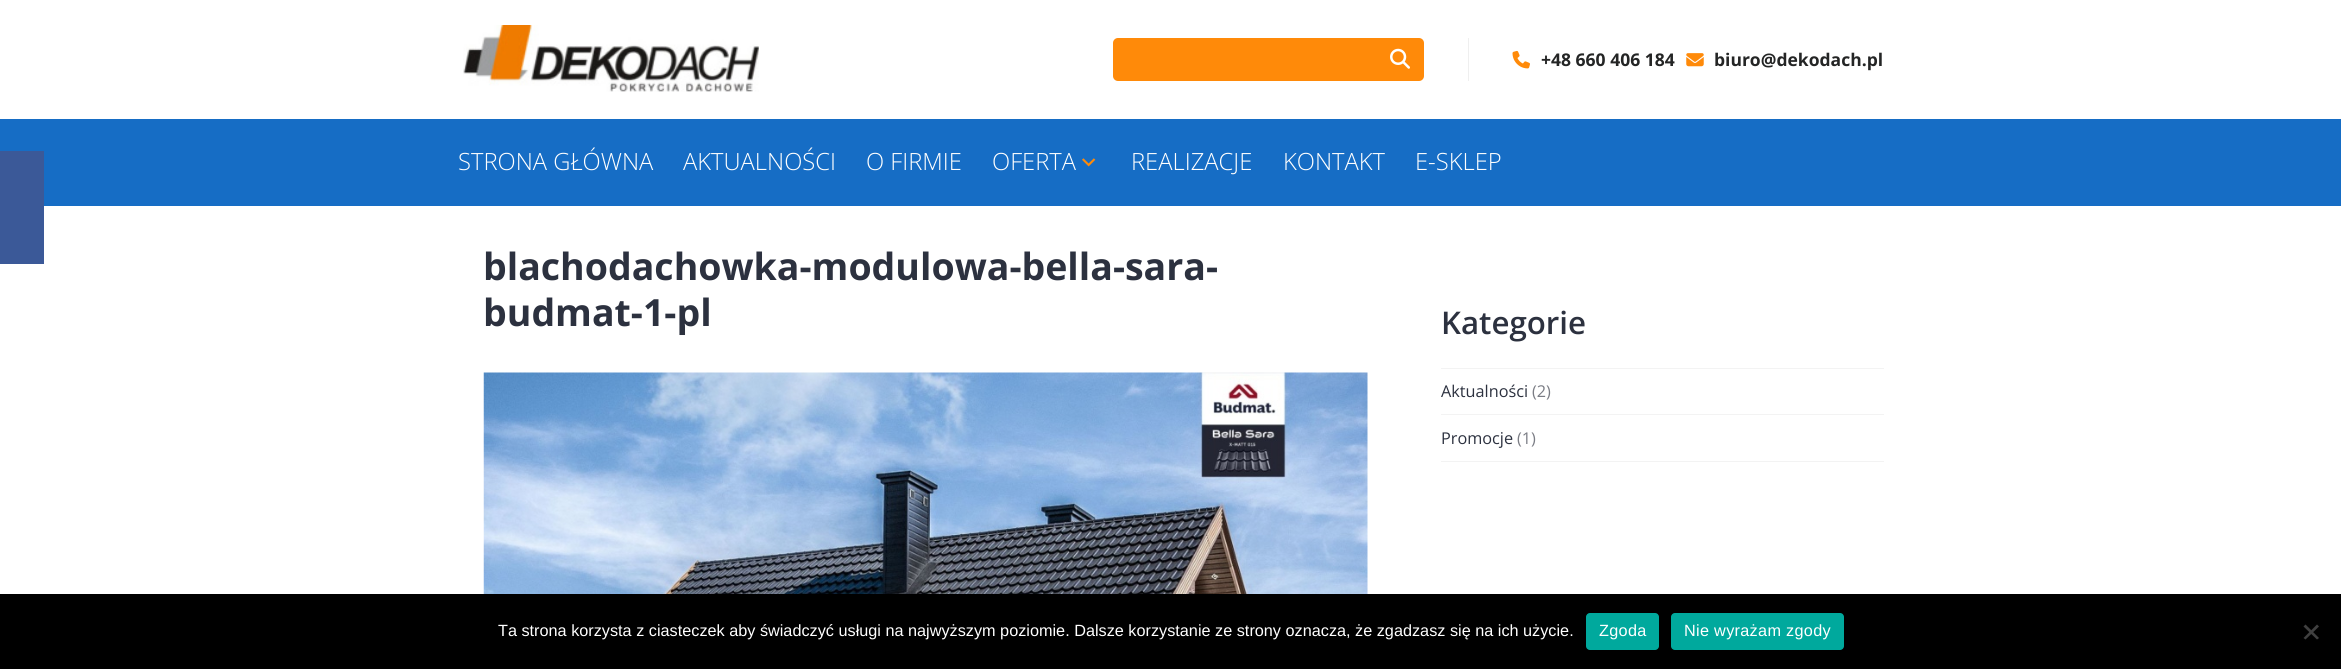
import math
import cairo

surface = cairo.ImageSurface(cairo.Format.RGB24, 2341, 669)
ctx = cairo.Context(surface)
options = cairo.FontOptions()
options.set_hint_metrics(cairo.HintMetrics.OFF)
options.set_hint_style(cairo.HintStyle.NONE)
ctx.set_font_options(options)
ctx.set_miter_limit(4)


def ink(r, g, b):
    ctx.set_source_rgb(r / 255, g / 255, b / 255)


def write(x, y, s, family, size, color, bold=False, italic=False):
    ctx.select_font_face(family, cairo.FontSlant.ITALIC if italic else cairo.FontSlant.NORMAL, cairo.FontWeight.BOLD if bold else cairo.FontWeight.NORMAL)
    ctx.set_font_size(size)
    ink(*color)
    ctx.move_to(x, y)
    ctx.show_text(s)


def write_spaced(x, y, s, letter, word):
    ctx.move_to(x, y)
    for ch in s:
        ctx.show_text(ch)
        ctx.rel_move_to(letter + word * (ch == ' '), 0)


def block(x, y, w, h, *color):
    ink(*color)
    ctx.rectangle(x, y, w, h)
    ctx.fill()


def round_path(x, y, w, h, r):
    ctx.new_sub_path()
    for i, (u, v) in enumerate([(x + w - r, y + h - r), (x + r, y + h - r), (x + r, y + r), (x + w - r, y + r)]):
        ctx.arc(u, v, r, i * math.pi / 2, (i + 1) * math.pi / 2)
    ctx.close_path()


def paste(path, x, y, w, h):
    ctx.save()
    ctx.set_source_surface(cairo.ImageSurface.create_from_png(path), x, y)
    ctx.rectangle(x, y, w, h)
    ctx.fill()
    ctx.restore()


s1 = dict(family="Open Sans", size=17.5, color=(36, 37, 37), bold=True)
s2 = dict(family="Open Sans Light", size=23.75, color=(255, 255, 255))
s3 = dict(family="Open Sans", size=37.5, color=(44, 49, 63), bold=True)
s4 = dict(family="Open Sans SemiBold", size=31.25, color=(44, 49, 63))
s5 = dict(family="Open Sans", size=16.25, color=(44, 49, 63))
s6 = dict(family="Open Sans", size=16.25, color=(122, 124, 132))
s7 = dict(family="Liberation Sans", size=16.25, color=(255, 255, 255))

ink(255, 255, 255)
ctx.paint()
block(0, 119, 2341, 87, 22, 109, 197)
block(0, 151, 44, 113, 59, 89, 152)
paste("pic1.png", 463, 25, 296, 67)
ink(255, 138, 9)
round_path(1113, 38, 311, 43, 5)
ctx.fill()
paste("pic2.png", 1390, 48, 20, 21)
block(1468, 38, 1, 43, 239, 239, 239)
paste("pic3.png", 1512, 50, 18, 19)
write(1541, 66, "+48 660 406 184", **s1)
paste("pic4.png", 1686, 53, 18, 14)
write(1714, 66, "biuro@dekodach.pl", **s1)
write(458, 170, "STRONA GŁÓWNA", **s2)
write(683, 170, "AKTUALNOŚCI", **s2)
write(866, 170, "O FIRMIE", **s2)
write(992, 170, "OFERTA", **s2)
paste("pic5.png", 1082, 158, 14, 9)
write(1131, 170, "REALIZACJE", **s2)
write(1283, 170, "KONTAKT", **s2)
write(1415, 170, "E-SKLEP", **s2)
write(483, 280, "blachodachowka-modulowa-bella-sara-", **s3)
write(483, 326, "budmat-1-pl", **s3)
paste("pic6.png", 483, 372, 885, 222)
write(1441, 334, "Kategorie", **s4)
block(1441, 461, 443, 1, 243, 243, 243)
block(1441, 368, 443, 1, 243, 243, 243)
write(1441, 397, "Aktualności", **s5)
write(1532, 397, "(2)", **s6)
block(1441, 414, 443, 1, 243, 243, 243)
write(1441, 444, "Promocje", **s5)
write(1517, 444, "(1)", **s6)
block(0, 594, 2341, 75, 0, 0, 0)
write(498, 636, "Ta strona korzysta z ciasteczek aby świadczyć usługi na najwyższym poziomie. Dalsze korzystanie ze strony oznacza, że zgadzasz się na ich użycie.", **s7)
ink(0, 169, 157)
round_path(1586, 613, 73, 37, 4)
ctx.fill()
ink(255, 255, 255)
write_spaced(1599, 636, "Zgoda", 0.3, 0)
ink(0, 169, 157)
round_path(1671, 613, 173, 37, 4)
ctx.fill()
ink(255, 255, 255)
write_spaced(1684, 636, "Nie wyrażam zgody", 0.3, 0)
ink(64, 64, 64)
ctx.new_path()
ctx.move_to(2317, 624.5)
ctx.line_to(2319, 626.5)
ctx.line_to(2305.5, 639.5)
ctx.line_to(2303.5, 638)
ctx.close_path()
ctx.fill()
ctx.new_path()
ctx.move_to(2303.5, 626.5)
ctx.line_to(2305.5, 624.5)
ctx.line_to(2319, 638)
ctx.line_to(2317, 639.5)
ctx.close_path()
ctx.fill()
surface.write_to_png("screenshot.png")
